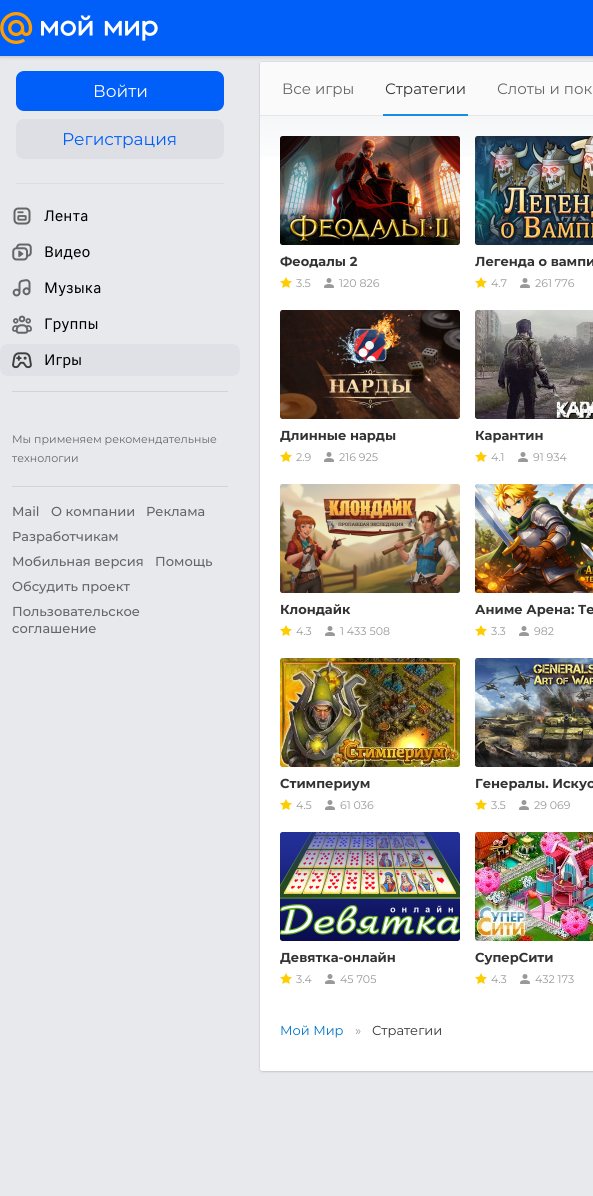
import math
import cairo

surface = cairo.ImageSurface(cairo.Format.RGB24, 593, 1196)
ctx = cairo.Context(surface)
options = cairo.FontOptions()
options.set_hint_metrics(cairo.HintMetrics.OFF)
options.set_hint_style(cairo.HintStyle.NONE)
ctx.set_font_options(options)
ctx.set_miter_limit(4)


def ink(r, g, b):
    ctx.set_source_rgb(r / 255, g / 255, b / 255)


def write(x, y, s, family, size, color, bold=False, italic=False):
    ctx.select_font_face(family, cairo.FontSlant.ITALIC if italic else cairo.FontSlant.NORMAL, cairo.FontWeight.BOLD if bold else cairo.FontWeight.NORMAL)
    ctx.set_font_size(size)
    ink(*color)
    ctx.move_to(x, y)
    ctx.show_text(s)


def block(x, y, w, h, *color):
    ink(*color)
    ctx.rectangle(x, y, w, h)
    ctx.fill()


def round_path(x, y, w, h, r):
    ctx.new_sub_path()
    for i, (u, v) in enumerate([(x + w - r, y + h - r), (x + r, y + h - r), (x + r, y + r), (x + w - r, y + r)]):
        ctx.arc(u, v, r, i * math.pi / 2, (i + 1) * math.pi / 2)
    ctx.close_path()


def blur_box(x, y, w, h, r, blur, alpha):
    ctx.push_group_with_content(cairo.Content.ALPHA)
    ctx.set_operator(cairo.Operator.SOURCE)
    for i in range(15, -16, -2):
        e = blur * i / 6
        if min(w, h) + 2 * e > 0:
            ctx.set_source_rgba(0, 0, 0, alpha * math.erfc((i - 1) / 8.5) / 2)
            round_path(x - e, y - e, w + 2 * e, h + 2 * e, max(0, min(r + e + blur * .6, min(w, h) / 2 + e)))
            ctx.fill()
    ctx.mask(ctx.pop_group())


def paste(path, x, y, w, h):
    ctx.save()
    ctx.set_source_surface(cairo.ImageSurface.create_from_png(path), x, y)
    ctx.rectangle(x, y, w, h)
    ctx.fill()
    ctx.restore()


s1 = dict(family="Montserrat", size=17, color=(255, 255, 255))
s2 = dict(family="Montserrat", size=17, color=(1, 95, 249))
s3 = dict(family="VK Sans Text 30", size=15, color=(0, 0, 0))
s4 = dict(family="Montserrat", size=11, color=(102, 102, 102))
s5 = dict(family="Montserrat Medium", size=13, color=(102, 102, 102))
s6 = dict(family="Montserrat", size=15, color=(102, 102, 102))
s7 = dict(family="Montserrat", size=15, color=(51, 51, 51))
s8 = dict(family="Montserrat", size=13, color=(51, 51, 51), bold=True)
s9 = dict(family="Montserrat", size=11, color=(153, 153, 153))
s10 = dict(family="Montserrat", size=13, color=(0, 119, 204))
s11 = dict(family="Montserrat", size=13, color=(153, 153, 153))
s12 = dict(family="Montserrat", size=13, color=(51, 51, 51))

ink(232, 233, 237)
ctx.paint()
ink(0, 0, 0)
blur_box(260, 63, 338, 1009, 2, 1, 0.12)
blur_box(260, 62, 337, 1009, 2, 0.5, 0.15)
ink(255, 255, 255)
round_path(260, 62, 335, 1009, 2)
ctx.fill()
ink(250, 250, 250)
ctx.new_path()
ctx.move_to(262, 62)
ctx.line_to(593, 62)
ctx.curve_to(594, 62, 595, 63, 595, 64)
ctx.line_to(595, 116)
ctx.line_to(260, 116)
ctx.line_to(260, 64)
ctx.curve_to(260, 63, 261, 62, 262, 62)
ctx.close_path()
ctx.fill()
ink(0, 0, 0)
blur_box(0, 1, 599, 56, 0, 2, 0.2)
block(0, 0, 593, 56, 1, 95, 249)
paste("pic1.png", 0, 12, 158, 32)
round_path(16, 71, 208, 40, 8)
ctx.fill()
write(93, 97, "Войти", **s1)
ink(221, 223, 228)
round_path(16, 119, 208, 40, 8)
ctx.fill()
write(62, 145, "Регистрация", **s2)
block(16, 183, 208, 1, 221, 222, 227)
paste("pic2.png", 13, 207, 18, 18)
write(44, 221, "Лента", **s3)
paste("pic3.png", 12, 243, 20, 18)
write(44, 257, "Видео", **s3)
paste("pic4.png", 12, 279, 19, 18)
write(44, 293, "Музыка", **s3)
paste("pic5.png", 12, 315, 20, 19)
write(44, 329, "Группы", **s3)
ink(224, 225, 230)
round_path(0, 344, 240, 32, 8)
ctx.fill()
paste("pic6.png", 12, 352, 20, 17)
write(44, 365, "Игры", **s3)
block(12, 391, 216, 1, 210, 211, 218)
write(12, 443, "Мы применяем рекомендательные", **s4)
write(12, 462, "технологии", **s4)
block(12, 486, 216, 1, 210, 211, 218)
write(12, 516, "Mail", **s5)
write(51, 516, "О компании", **s5)
write(146, 516, "Реклама", **s5)
write(12, 541, "Разработчикам", **s5)
write(12, 566, "Мобильная версия", **s5)
write(155, 566, "Помощь", **s5)
write(12, 591, "Обсудить проект", **s5)
write(12, 616, "Пользовательское", **s5)
write(12, 633, "соглашение", **s5)
block(260, 115, 333, 1, 230, 230, 230)
write(282, 94, "Все игры", **s6)
block(383, 114, 85, 2, 22, 141, 226)
write(385, 94, "Стратегии", **s7)
write(497, 94, "Слоты и пок", **s6)
gradient = cairo.LinearGradient(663, 116, 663, 171)
gradient.add_color_stop_rgba(0, 0.961, 0.965, 0.973, 1)
gradient.add_color_stop_rgba(1, 1, 1, 1, 1)
ctx.set_source(gradient)
ctx.rectangle(260, 116, 333, 41)
ctx.fill()
paste("pic7.png", 280, 136, 180, 109)
write(280, 266, "Феодалы 2", **s8)
paste("pic8.png", 280, 277, 12, 11)
write(296, 287, "3.5", **s9)
paste("pic9.png", 324, 278, 10, 10)
write(339, 287, "120 826", **s9)
paste("pic10.png", 475, 136, 118, 109)
write(475, 266, "Легенда о вампи", **s8)
paste("pic8.png", 475, 277, 12, 11)
write(491, 287, "4.7", **s9)
paste("pic9.png", 520, 278, 10, 10)
write(535, 287, "261 776", **s9)
paste("pic11.png", 280, 310, 180, 109)
write(280, 440, "Длинные нарды", **s8)
paste("pic8.png", 280, 451, 12, 11)
write(296, 461, "2.9", **s9)
paste("pic9.png", 324, 452, 10, 10)
write(339, 461, "216 925", **s9)
paste("pic12.png", 475, 310, 118, 109)
write(475, 440, "Карантин", **s8)
paste("pic8.png", 475, 451, 12, 11)
write(491, 461, "4.1", **s9)
paste("pic9.png", 518, 452, 10, 10)
write(533, 461, "91 934", **s9)
paste("pic13.png", 280, 484, 180, 109)
write(280, 614, "Клондайк", **s8)
paste("pic8.png", 280, 625, 12, 11)
write(296, 635, "4.3", **s9)
paste("pic9.png", 325, 626, 10, 10)
write(340, 635, "1 433 508", **s9)
paste("pic14.png", 475, 484, 118, 109)
write(475, 614, "Аниме Арена: Те", **s8)
paste("pic8.png", 475, 625, 12, 11)
write(491, 635, "3.3", **s9)
paste("pic9.png", 519, 626, 10, 10)
write(534, 635, "982", **s9)
paste("pic15.png", 280, 658, 180, 109)
write(280, 788, "Стимпериум", **s8)
paste("pic8.png", 280, 799, 12, 11)
write(296, 809, "4.5", **s9)
paste("pic9.png", 325, 800, 10, 10)
write(340, 809, "61 036", **s9)
paste("pic16.png", 475, 658, 118, 109)
write(475, 788, "Генералы. Искус", **s8)
paste("pic8.png", 475, 799, 12, 11)
write(491, 809, "3.5", **s9)
paste("pic9.png", 519, 800, 10, 10)
write(534, 809, "29 069", **s9)
paste("pic17.png", 280, 832, 180, 109)
write(280, 962, "Девятка-онлайн", **s8)
paste("pic8.png", 280, 973, 12, 11)
write(296, 983, "3.4", **s9)
paste("pic9.png", 325, 974, 10, 10)
write(340, 983, "45 705", **s9)
paste("pic18.png", 475, 832, 118, 109)
write(475, 962, "СуперСити", **s8)
paste("pic8.png", 475, 973, 12, 11)
write(491, 983, "4.3", **s9)
paste("pic9.png", 520, 974, 10, 10)
write(535, 983, "432 173", **s9)
write(280, 1035, "Мой Мир", **s10)
write(355, 1035, "»", **s11)
write(372, 1035, "Стратегии", **s12)
surface.write_to_png("screenshot.png")
